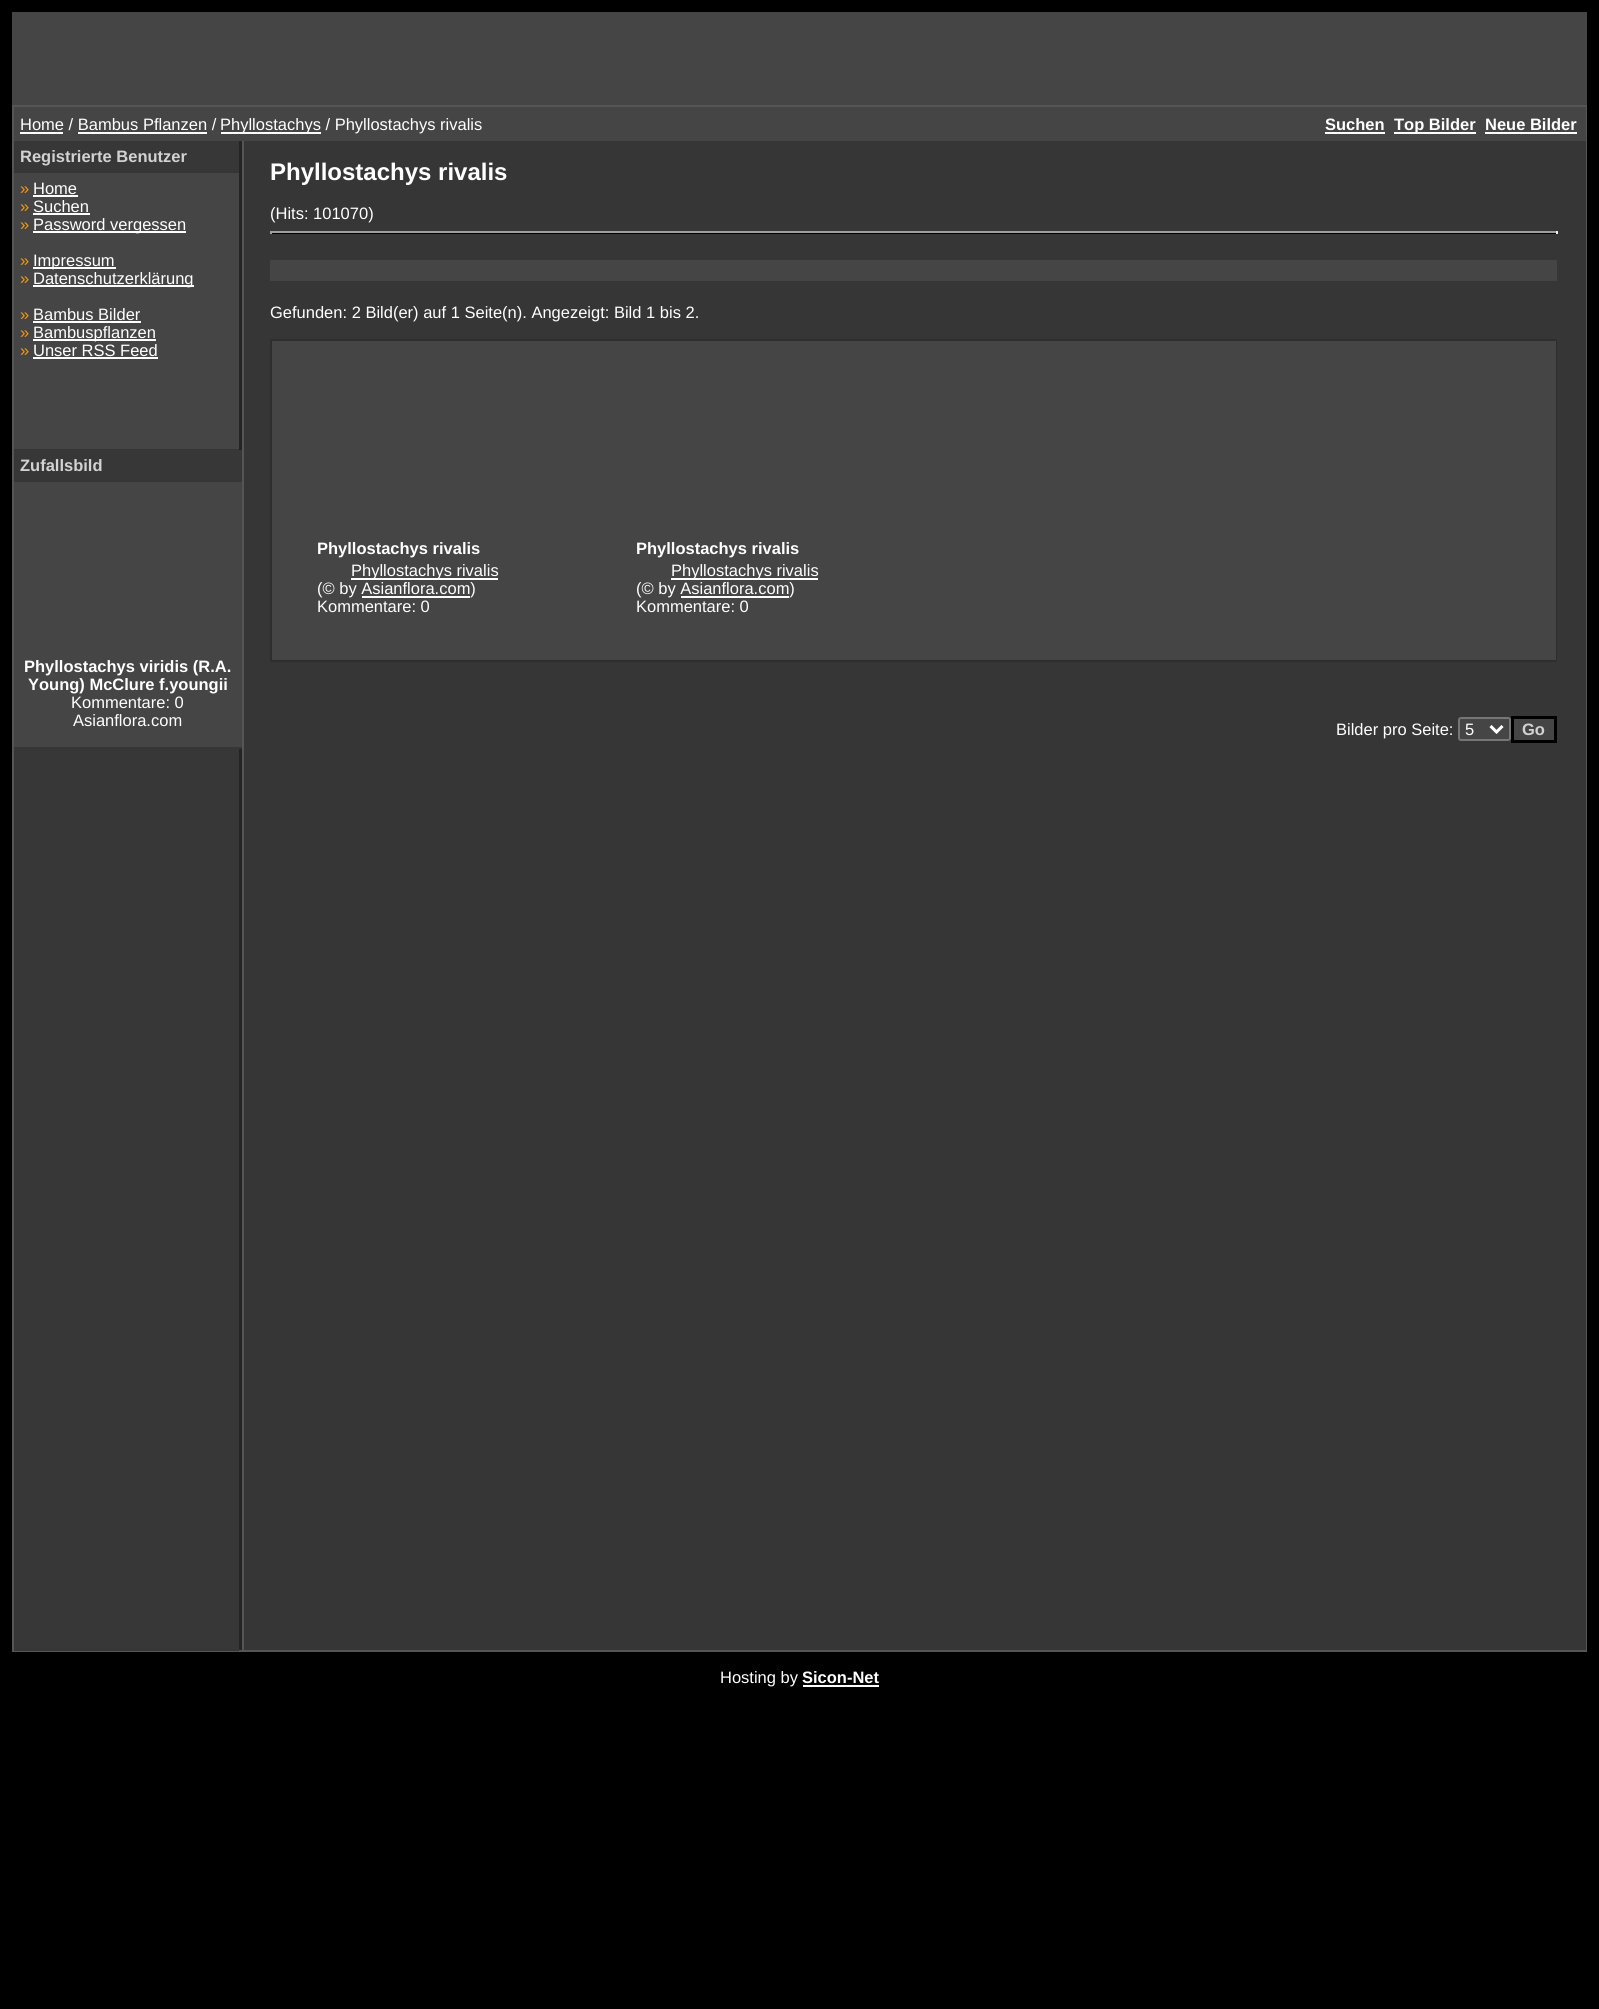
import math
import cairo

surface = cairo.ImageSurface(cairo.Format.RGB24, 1599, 2009)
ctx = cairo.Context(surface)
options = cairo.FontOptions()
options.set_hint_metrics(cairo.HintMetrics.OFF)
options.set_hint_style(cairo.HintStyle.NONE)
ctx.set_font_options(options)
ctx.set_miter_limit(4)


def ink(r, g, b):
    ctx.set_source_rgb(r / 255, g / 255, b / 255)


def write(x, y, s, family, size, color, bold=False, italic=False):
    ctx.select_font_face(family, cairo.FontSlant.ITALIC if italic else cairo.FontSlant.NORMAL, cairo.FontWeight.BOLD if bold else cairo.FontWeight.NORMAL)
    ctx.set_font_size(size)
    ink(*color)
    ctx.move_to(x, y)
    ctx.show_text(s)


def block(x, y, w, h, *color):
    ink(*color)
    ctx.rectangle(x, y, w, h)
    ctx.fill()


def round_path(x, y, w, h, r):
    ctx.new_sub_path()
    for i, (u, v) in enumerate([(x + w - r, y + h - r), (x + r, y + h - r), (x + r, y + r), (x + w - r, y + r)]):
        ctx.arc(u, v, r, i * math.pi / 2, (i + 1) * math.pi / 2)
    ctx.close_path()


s1 = dict(family="Liberation Sans", size=16.5, color=(255, 255, 255))
s2 = dict(family="Liberation Sans", size=16.5, color=(255, 255, 255), bold=True)
s3 = dict(family="Liberation Sans", size=16.5, color=(210, 210, 210), bold=True)
s4 = dict(family="Liberation Sans", size=16.5, color=(254, 153, 0))
s5 = dict(family="Liberation Sans", size=24, color=(255, 255, 255), bold=True)

ink(0, 0, 0)
ctx.paint()
block(12, 12, 1575, 93, 69, 69, 69)
block(12, 105, 1575, 1547, 85, 85, 85)
block(244, 141, 1342, 1509, 54, 54, 54)
block(14, 107, 1572, 34, 69, 69, 69)
write(20, 130, "Home / Bambus Pflanzen /", **s1)
block(20, 132, 43, 2, 255, 255, 255)
block(78, 132, 129, 2, 255, 255, 255)
block(221, 132, 100, 2, 255, 255, 255)
write(220, 130, "Phyllostachys / Phyllostachys rivalis", **s1)
write(1325, 130, "Suchen", **s2)
block(1325, 132, 60, 2, 255, 255, 255)
block(1394, 132, 82, 2, 255, 255, 255)
write(1394, 130, "Top Bilder", **s2)
write(1485, 130, "Neue Bilder", **s2)
block(1485, 132, 92, 2, 255, 255, 255)
block(239, 141, 3, 1509, 36, 36, 36)
block(14, 141, 225, 30, 55, 55, 55)
write(20, 162, "Registrierte Benutzer", **s3)
block(14, 171, 225, 2, 54, 54, 54)
block(14, 173, 225, 276, 69, 69, 69)
write(20, 194, "»", **s4)
write(33, 194, "Home", **s1)
block(33, 195, 45, 2, 255, 255, 255)
write(20, 212, "»", **s4)
write(33, 212, "Suchen", **s1)
block(33, 213, 57, 2, 255, 255, 255)
write(20, 230, "»", **s4)
block(33, 231, 153, 2, 255, 255, 255)
write(33, 230, "Password vergessen", **s1)
write(20, 266, "»", **s4)
block(33, 267, 83, 2, 255, 255, 255)
write(33, 266, "Impressum", **s1)
write(20, 284, "»", **s4)
block(33, 285, 161, 2, 255, 255, 255)
write(33, 284, "Datenschutzerklärung", **s1)
write(20, 320, "»", **s4)
write(33, 320, "Bambus Bilder", **s1)
block(33, 321, 108, 2, 255, 255, 255)
write(20, 338, "»", **s4)
block(33, 339, 123, 2, 255, 255, 255)
write(33, 338, "Bambuspflanzen", **s1)
write(20, 356, "»", **s4)
write(33, 356, "Unser RSS Feed", **s1)
block(33, 357, 125, 2, 255, 255, 255)
block(14, 449, 225, 1, 54, 54, 54)
block(14, 450, 228, 30, 55, 55, 55)
write(20, 471, "Zufallsbild", **s3)
block(14, 480, 228, 2, 54, 54, 54)
block(14, 482, 228, 265, 69, 69, 69)
write(24, 672, "Phyllostachys viridis (R.A.", **s2)
write(28, 690, "Young) McClure f.youngii", **s2)
write(71, 708, "Kommentare: 0", **s1)
write(73, 726, "Asianflora.com", **s1)
block(14, 747, 228, 2, 54, 54, 54)
block(14, 749, 225, 900, 55, 55, 55)
block(14, 1649, 225, 2, 54, 54, 54)
write(270, 180, "Phyllostachys rivalis", **s5)
write(270, 219, "(Hits: 101070)", **s1)
block(270, 233, 1287, 1, 0, 0, 0)
block(270, 231, 1287, 2, 159, 159, 159)
block(1556, 231, 2, 3, 238, 238, 238)
block(270, 231, 2, 3, 159, 159, 159)
block(270, 260, 1287, 21, 69, 69, 69)
write(270, 318, "Gefunden: 2 Bild(er) auf 1 Seite(n). Angezeigt: Bild 1 bis 2.", **s1)
block(270, 339, 1287, 323, 46, 46, 46)
block(272, 341, 1284, 319, 69, 69, 69)
write(317, 554, "Phyllostachys rivalis", **s2)
block(351, 578, 147, 2, 255, 255, 255)
write(351, 576, "Phyllostachys rivalis", **s1)
write(317, 594, "(© by Asianflora.com)", **s1)
block(362, 596, 108, 2, 255, 255, 255)
write(317, 612, "Kommentare: 0", **s1)
write(636, 554, "Phyllostachys rivalis", **s2)
block(671, 578, 147, 2, 255, 255, 255)
write(671, 576, "Phyllostachys rivalis", **s1)
write(636, 594, "(© by Asianflora.com)", **s1)
block(681, 596, 108, 2, 255, 255, 255)
write(636, 612, "Kommentare: 0", **s1)
write(1336, 735, "Bilder pro Seite:", **s1)
ink(69, 69, 69)
round_path(1459, 718, 51, 22, 2)
ctx.fill_preserve()
ink(118, 118, 118)
ctx.stroke()
ctx.new_path()
ctx.move_to(1490.5, 726)
ctx.line_to(1496.5, 732)
ctx.line_to(1502.5, 726)
ink(255, 255, 255)
ctx.set_line_width(3)
ctx.stroke()
write(1465, 735, "5", **s1)
ink(69, 69, 69)
ctx.rectangle(1512.5, 717.5, 43, 24)
ctx.fill_preserve()
ink(0, 0, 0)
ctx.stroke()
write(1522, 735, "Go", **s3)
write(720, 1683, "Hosting by", **s1)
write(802, 1683, "Sicon-Net", **s2)
block(803, 1685, 76, 2, 255, 255, 255)
surface.write_to_png("screenshot.png")
